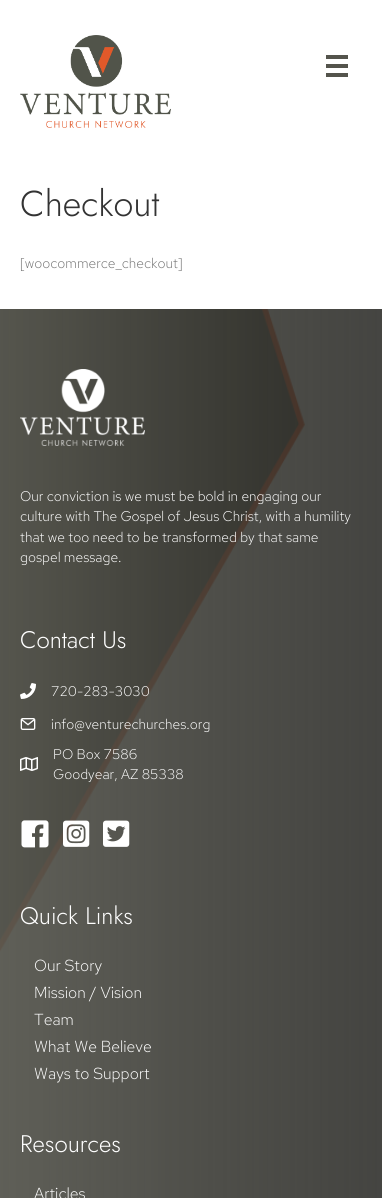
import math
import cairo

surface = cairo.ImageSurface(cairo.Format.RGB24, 382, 1198)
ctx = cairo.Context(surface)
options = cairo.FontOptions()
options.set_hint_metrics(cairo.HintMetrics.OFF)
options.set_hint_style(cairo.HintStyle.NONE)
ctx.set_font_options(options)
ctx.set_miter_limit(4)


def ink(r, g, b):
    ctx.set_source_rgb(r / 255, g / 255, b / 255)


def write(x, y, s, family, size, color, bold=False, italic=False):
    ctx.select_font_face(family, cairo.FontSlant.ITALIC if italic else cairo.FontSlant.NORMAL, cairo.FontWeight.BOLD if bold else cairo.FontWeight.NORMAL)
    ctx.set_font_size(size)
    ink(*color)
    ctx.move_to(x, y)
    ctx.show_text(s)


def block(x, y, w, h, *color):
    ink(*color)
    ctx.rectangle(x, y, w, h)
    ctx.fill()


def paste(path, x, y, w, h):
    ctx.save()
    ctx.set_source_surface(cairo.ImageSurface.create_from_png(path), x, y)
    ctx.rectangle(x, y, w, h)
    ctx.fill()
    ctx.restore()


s1 = dict(family="Jost Light", size=36, color=(51, 51, 51))
s2 = dict(family="Red Hat Text Light", size=14, color=(117, 117, 117))
s3 = dict(family="Red Hat Text Light", size=14, color=(255, 255, 255))
s4 = dict(family="Jost Light", size=24, color=(255, 255, 255))
s5 = dict(family="Red Hat Text Light", size=16, color=(255, 255, 255))

ink(242, 242, 242)
ctx.paint()
block(0, 0, 382, 309, 255, 255, 255)
paste("pic1.png", 20, 35, 151, 93)
block(326, 55, 22, 4, 84, 84, 76)
block(326, 64, 22, 4, 84, 84, 76)
block(326, 73, 22, 4, 84, 84, 76)
write(20, 216, "Checkout", **s1)
write(20, 268, "[woocommerce_checkout]", **s2)
paste("pic2.png", 0, 309, 305, 644)
gradient = cairo.LinearGradient(0, 829, 382, 829)
gradient.add_color_stop_rgba(0, 0.329, 0.329, 0.298, 0.93)
gradient.add_color_stop_rgba(1, 0.118, 0.118, 0.102, 0.82)
ctx.set_source(gradient)
ctx.rectangle(0, 309, 382, 889)
ctx.fill()
paste("pic3.png", 20, 369, 125, 77)
write(20, 501, "Our conviction is we must be bold in engaging our", **s3)
write(20, 521, "culture with The Gospel of Jesus Christ, with a humility", **s3)
write(20, 542, "that we too need to be transformed by that same", **s3)
write(20, 562, "gospel message.", **s3)
write(20, 648, "Contact Us", **s4)
paste("pic4.png", 20, 683, 16, 16)
write(51, 696, "720-283-3030", **s3)
paste("pic5.png", 20, 718, 16, 12)
write(51, 729, "info@venturechurches.org", **s3)
paste("pic6.png", 20, 757, 18, 14)
write(53, 759, "PO Box 7586", **s3)
write(53, 779, "Goodyear, AZ 85338", **s3)
paste("pic7.png", 21, 820, 28, 28)
paste("pic8.png", 63, 820, 27, 27)
paste("pic9.png", 103, 820, 27, 27)
write(20, 924, "Quick Links", **s4)
write(34, 971, "Our Story", **s5)
write(34, 998, "Mission / Vision", **s5)
write(34, 1025, "Team", **s5)
write(34, 1052, "What We Believe", **s5)
write(34, 1079, "Ways to Support", **s5)
write(20, 1152, "Resources", **s4)
write(34, 1199, "Articles", **s5)
surface.write_to_png("screenshot.png")
